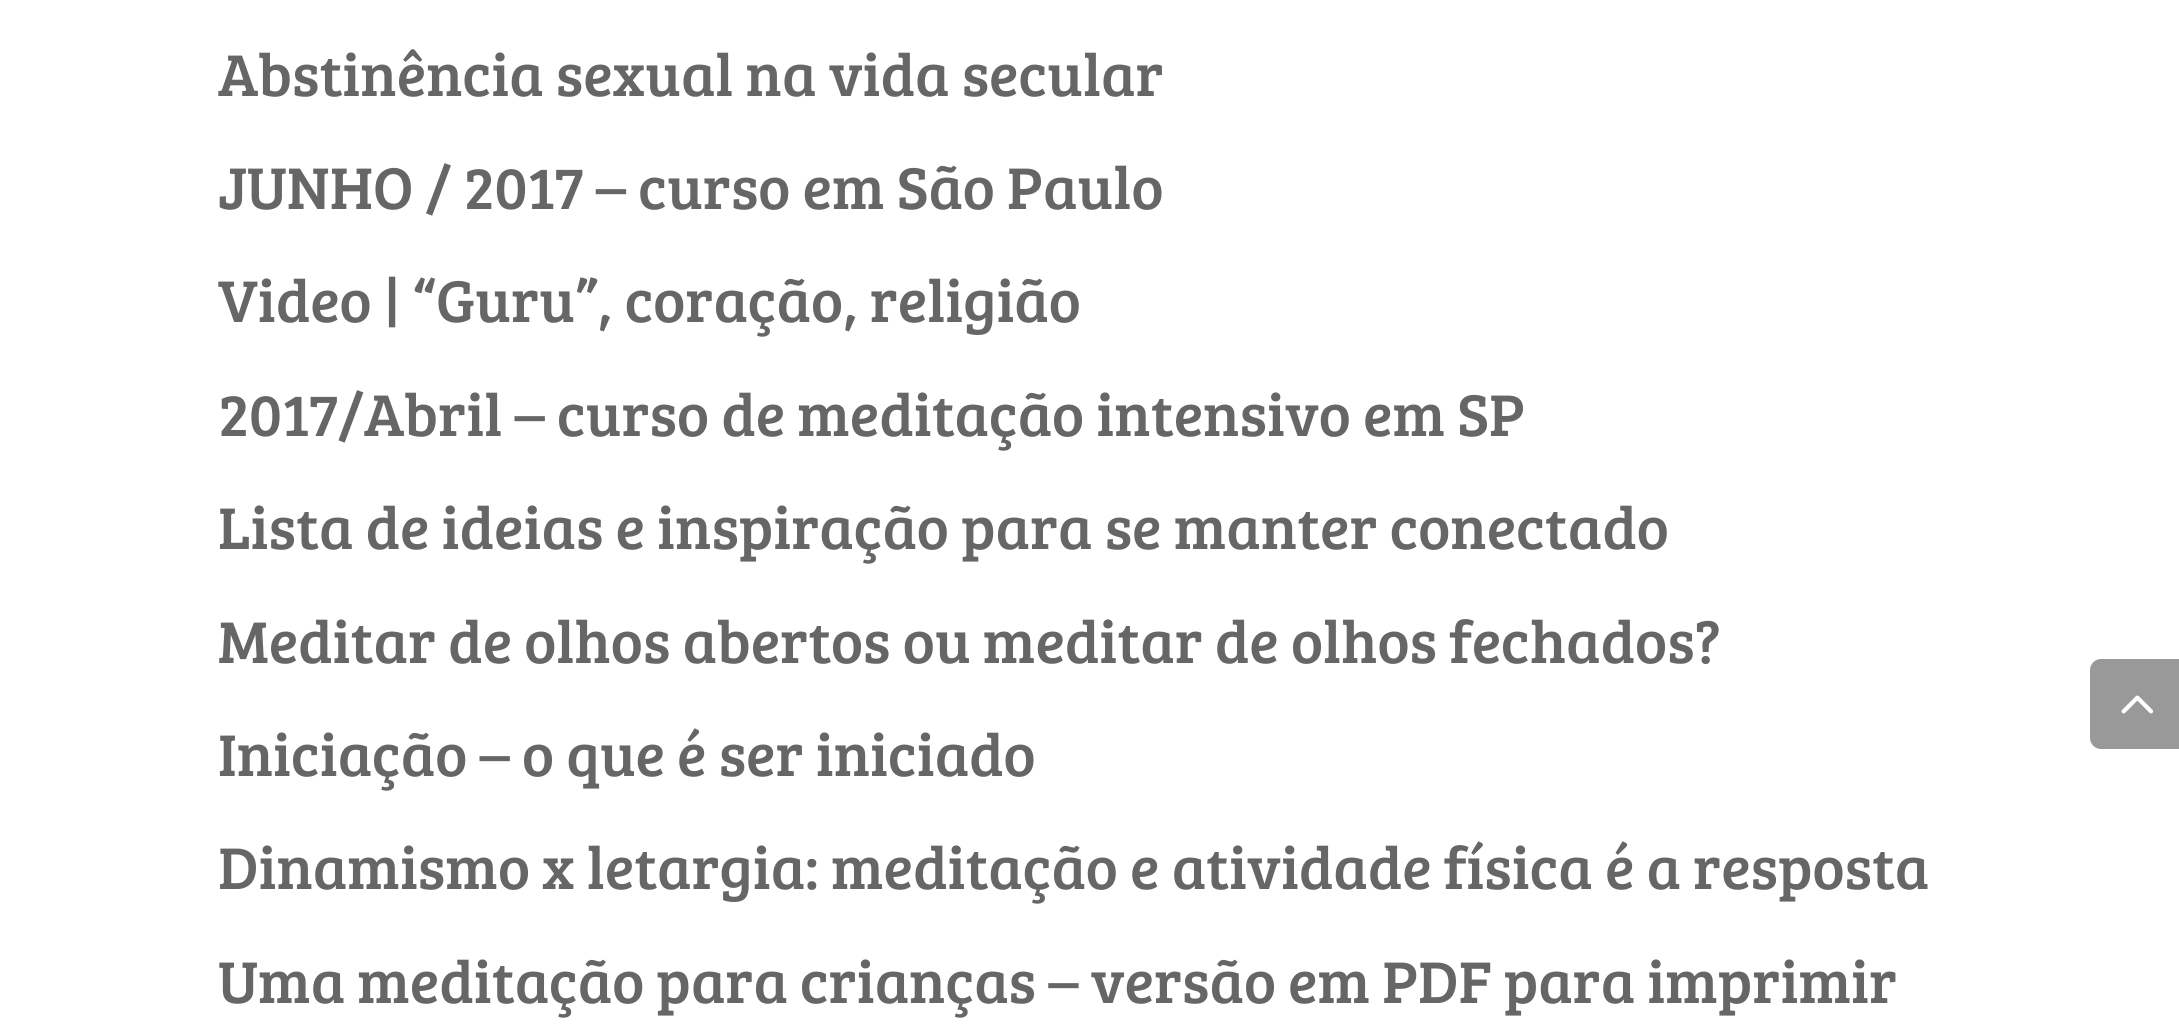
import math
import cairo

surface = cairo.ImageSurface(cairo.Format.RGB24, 2179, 1030)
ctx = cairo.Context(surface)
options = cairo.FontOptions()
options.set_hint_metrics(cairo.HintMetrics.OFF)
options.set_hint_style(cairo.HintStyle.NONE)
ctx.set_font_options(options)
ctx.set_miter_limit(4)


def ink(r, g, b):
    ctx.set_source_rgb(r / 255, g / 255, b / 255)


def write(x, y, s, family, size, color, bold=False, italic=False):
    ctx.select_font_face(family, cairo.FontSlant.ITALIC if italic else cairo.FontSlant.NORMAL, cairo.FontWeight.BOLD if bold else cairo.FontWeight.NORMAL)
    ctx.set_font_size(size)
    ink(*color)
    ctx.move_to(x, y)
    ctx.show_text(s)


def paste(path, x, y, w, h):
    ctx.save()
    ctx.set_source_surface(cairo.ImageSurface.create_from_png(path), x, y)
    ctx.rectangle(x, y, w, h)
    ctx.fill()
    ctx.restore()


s1 = dict(family="Bree Serif", size=60.75, color=(102, 102, 102))

ink(255, 255, 255)
ctx.paint()
write(218, 96, "Abstinência sexual na vida secular", **s1)
write(218, 209, "JUNHO / 2017 – curso em São Paulo", **s1)
write(218, 322, "Video | “Guru”, coração, religião", **s1)
write(218, 436, "2017/Abril – curso de meditação intensivo em SP", **s1)
write(218, 549, "Lista de ideias e inspiração para se manter conectado", **s1)
write(218, 663, "Meditar de olhos abertos ou meditar de olhos fechados?", **s1)
write(218, 776, "Iniciação – o que é ser iniciado", **s1)
write(218, 889, "Dinamismo x letargia: meditação e atividade física é a resposta", **s1)
write(218, 1003, "Uma meditação para crianças – versão em PDF para imprimir", **s1)
ink(153, 153, 153)
ctx.new_path()
ctx.move_to(2101, 659)
ctx.line_to(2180, 659)
ctx.line_to(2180, 749)
ctx.line_to(2101, 749)
ctx.curve_to(2095, 749, 2090, 744, 2090, 738)
ctx.line_to(2090, 670)
ctx.curve_to(2090, 664, 2095, 659, 2101, 659)
ctx.close_path()
ctx.fill()
paste("pic1.png", 2121, 695, 33, 19)
surface.write_to_png("screenshot.png")
